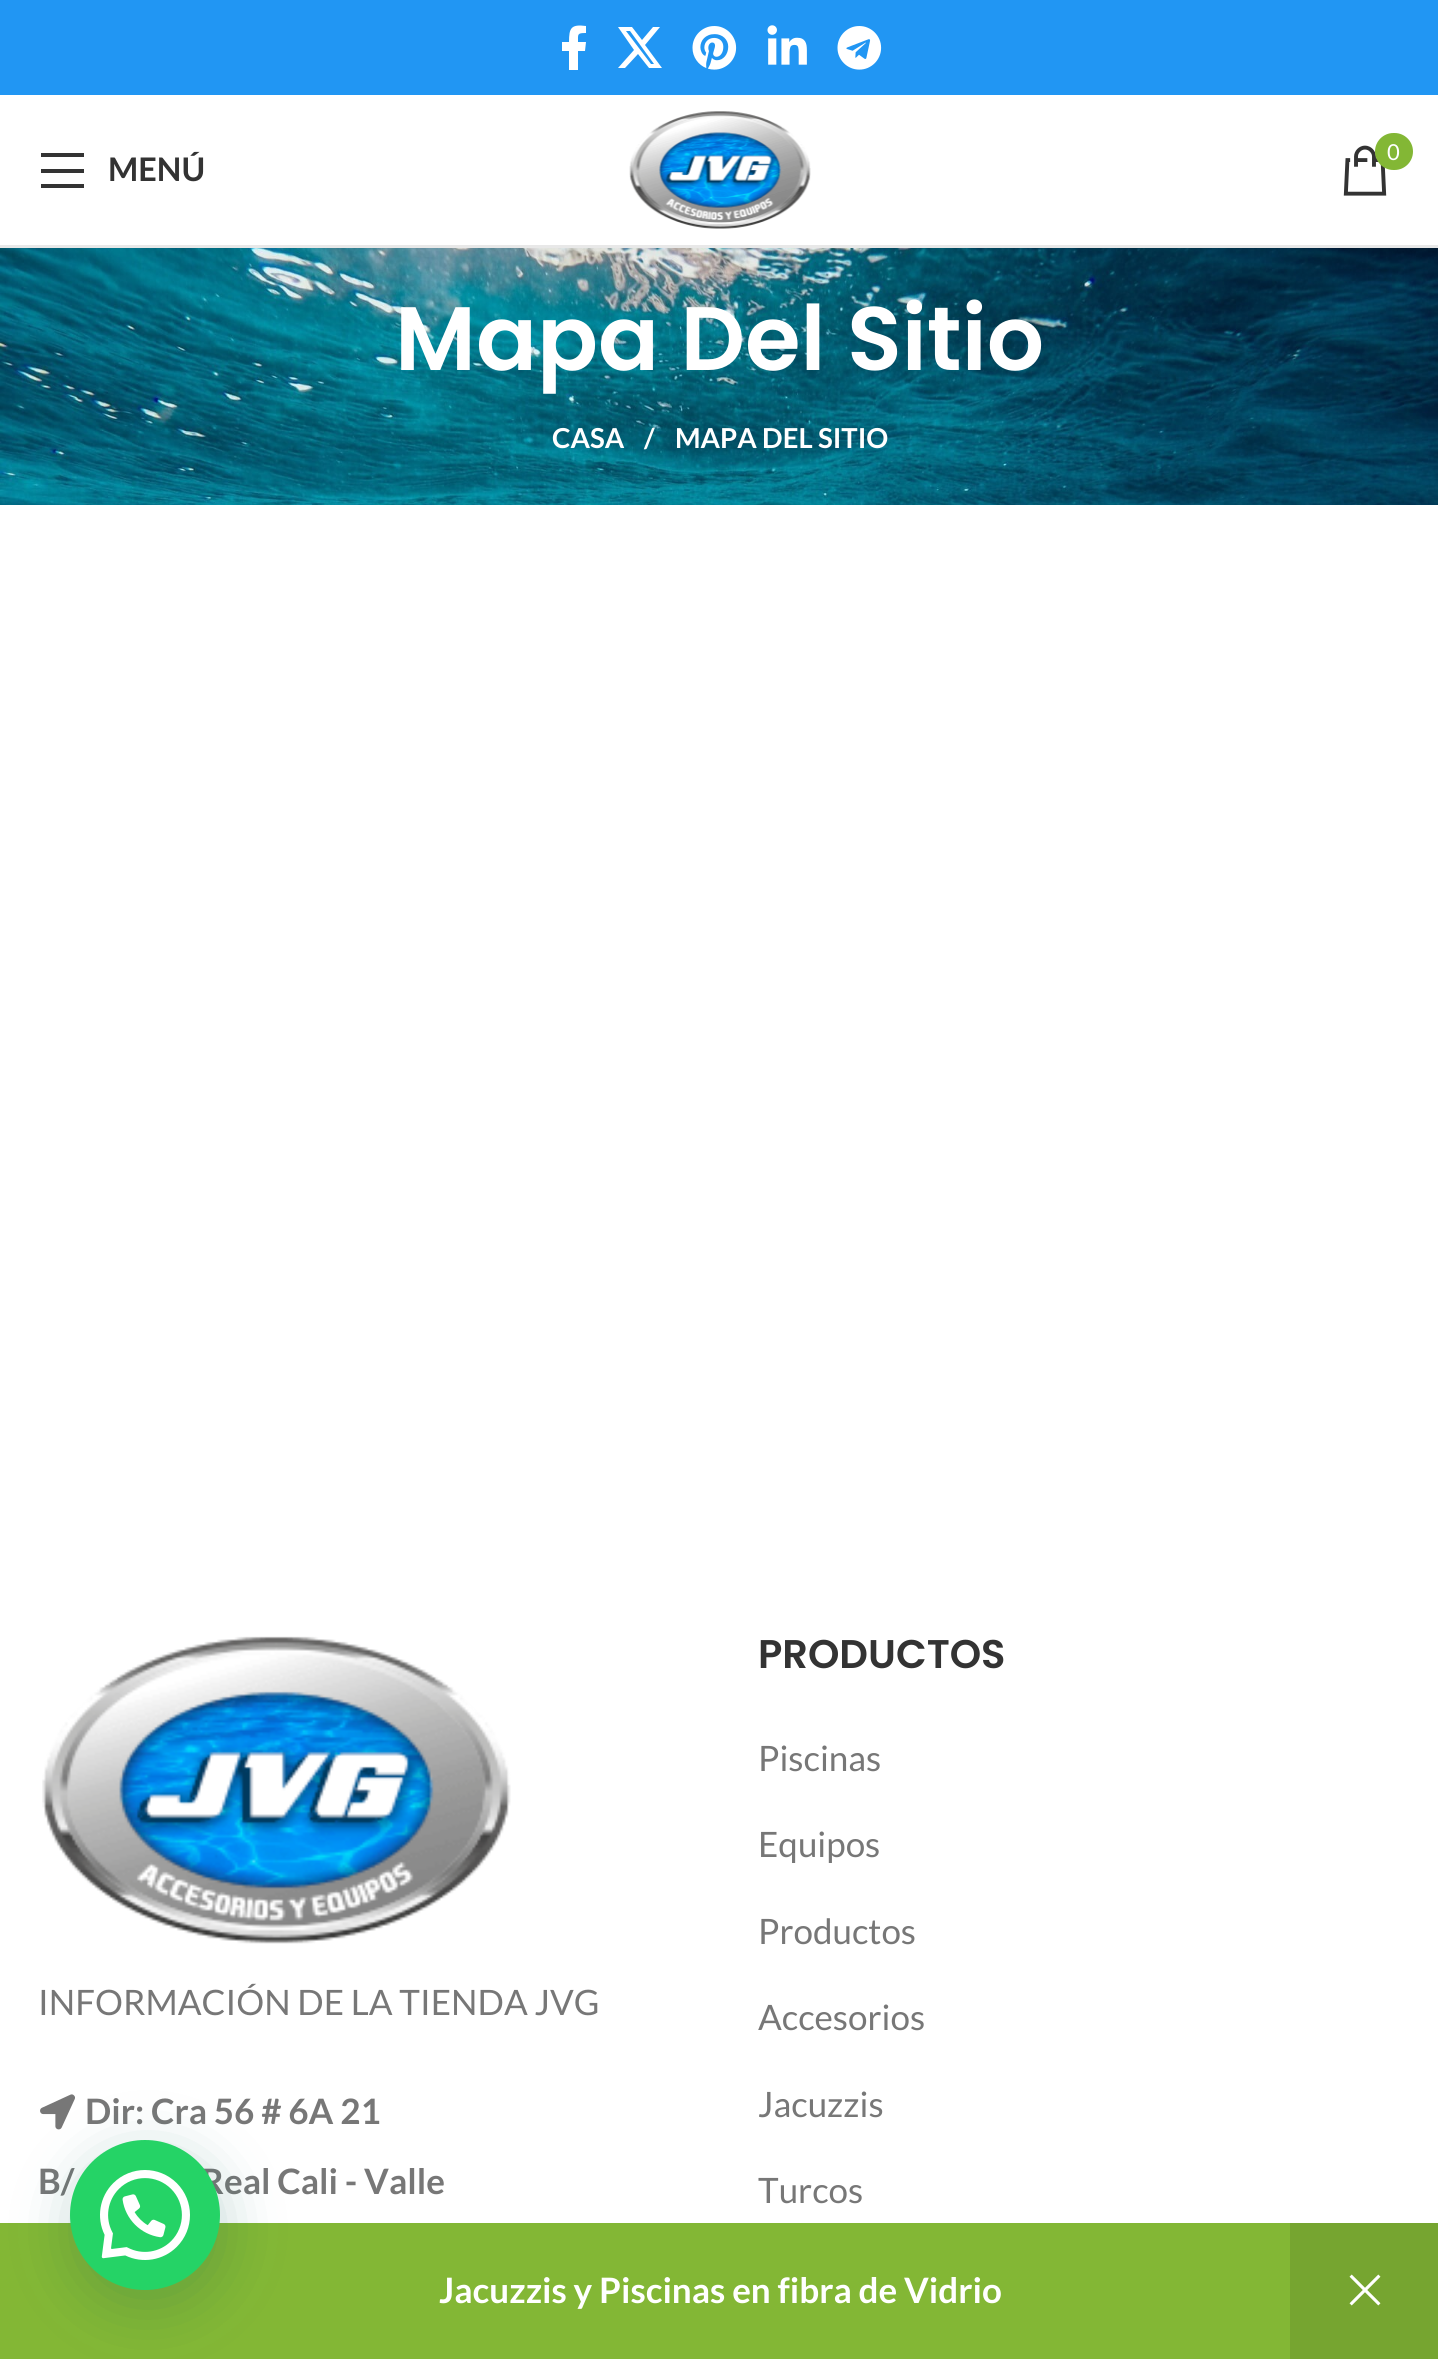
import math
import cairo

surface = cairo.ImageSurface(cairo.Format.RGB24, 1438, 2359)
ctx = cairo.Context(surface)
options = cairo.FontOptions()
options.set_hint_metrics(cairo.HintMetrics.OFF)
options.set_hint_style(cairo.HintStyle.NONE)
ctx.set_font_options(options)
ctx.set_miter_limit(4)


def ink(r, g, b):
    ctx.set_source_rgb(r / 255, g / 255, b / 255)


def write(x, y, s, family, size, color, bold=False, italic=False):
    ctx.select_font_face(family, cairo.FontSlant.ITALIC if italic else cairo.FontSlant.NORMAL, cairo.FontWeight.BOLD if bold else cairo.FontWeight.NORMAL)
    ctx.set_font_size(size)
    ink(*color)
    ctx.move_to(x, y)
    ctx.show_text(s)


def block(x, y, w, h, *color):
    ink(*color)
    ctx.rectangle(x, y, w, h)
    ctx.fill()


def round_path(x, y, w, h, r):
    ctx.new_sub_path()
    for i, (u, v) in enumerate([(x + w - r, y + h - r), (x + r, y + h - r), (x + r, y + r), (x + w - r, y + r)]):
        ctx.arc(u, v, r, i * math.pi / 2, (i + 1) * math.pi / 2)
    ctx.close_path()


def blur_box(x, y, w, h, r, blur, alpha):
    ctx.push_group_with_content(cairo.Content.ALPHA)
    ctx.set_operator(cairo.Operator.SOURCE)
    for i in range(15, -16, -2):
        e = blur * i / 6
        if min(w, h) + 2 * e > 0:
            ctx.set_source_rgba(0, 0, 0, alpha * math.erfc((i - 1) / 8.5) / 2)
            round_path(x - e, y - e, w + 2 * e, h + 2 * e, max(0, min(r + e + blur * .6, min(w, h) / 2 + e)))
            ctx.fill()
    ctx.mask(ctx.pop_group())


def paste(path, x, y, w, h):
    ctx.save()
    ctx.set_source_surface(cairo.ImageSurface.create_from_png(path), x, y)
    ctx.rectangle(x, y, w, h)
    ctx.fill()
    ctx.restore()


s1 = dict(family="Lato", size=32.5, color=(51, 51, 51), bold=True)
s2 = dict(family="Lato", size=22, color=(255, 255, 255))
s3 = dict(family="Poppins SemiBold", size=90, color=(255, 255, 255))
s4 = dict(family="Lato", size=27.5, color=(255, 255, 255), bold=True)
s5 = dict(family="Lato", size=35, color=(119, 119, 119))
s6 = dict(family="Lato", size=35, color=(119, 119, 119), bold=True)
s7 = dict(family="Poppins SemiBold", size=40, color=(51, 51, 51))
s8 = dict(family="Lato", size=35, color=(255, 255, 255), bold=True)

ink(255, 255, 255)
ctx.paint()
block(0, 0, 1438, 95, 33, 150, 243)
ink(255, 255, 255)
ctx.new_path()
ctx.move_to(585, 51)
ctx.line_to(586, 42)
ctx.line_to(578, 42)
ctx.curve_to(578, 34, 577, 33, 586, 33)
ctx.line_to(586, 26)
ctx.curve_to(571, 24, 569, 28, 569, 42)
ctx.line_to(562, 42)
ctx.line_to(562, 51)
ctx.line_to(569, 51)
ctx.line_to(569, 70)
ctx.line_to(578, 70)
ctx.line_to(578, 51)
ctx.close_path()
ctx.fill()
ctx.new_path()
ctx.move_to(653, 27)
ctx.line_to(660, 27)
ctx.line_to(645, 45)
ctx.line_to(662, 68)
ctx.line_to(649, 68)
ctx.line_to(638, 54)
ctx.line_to(625, 68)
ctx.line_to(618, 68)
ctx.line_to(634, 50)
ctx.line_to(618, 27)
ctx.line_to(632, 27)
ctx.line_to(642, 40)
ctx.close_path()
ctx.move_to(651, 64)
ctx.line_to(654, 64)
ctx.line_to(630, 31)
ctx.line_to(626, 31)
ctx.close_path()
ctx.fill()
paste("pic1.png", 692, 26, 45, 44)
paste("pic2.png", 767, 25, 40, 40)
paste("pic3.png", 837, 26, 45, 44)
block(0, 245, 1438, 3, 232, 232, 232)
ink(51, 51, 51)
ctx.new_path()
ctx.move_to(41, 157)
ctx.line_to(84, 157)
ctx.line_to(84, 153)
ctx.line_to(41, 153)
ctx.close_path()
ctx.move_to(41, 173)
ctx.line_to(84, 173)
ctx.line_to(84, 169)
ctx.line_to(41, 169)
ctx.close_path()
ctx.move_to(41, 188)
ctx.line_to(84, 188)
ctx.line_to(84, 184)
ctx.line_to(41, 184)
ctx.close_path()
ctx.fill()
write(108, 181, "MENÚ", **s1)
paste("pic4.png", 629, 111, 182, 118)
paste("pic5.png", 1343, 145, 44, 51)
ink(131, 183, 53)
round_path(1375, 133, 38, 37, 18.5)
ctx.fill()
write(1387, 160, "0", **s2)
paste("pic6.png", 0, 248, 1438, 257)
write(395, 370, "Mapa Del Sitio", **s3)
write(552, 448, "CASA", **s4)
write(644, 448, "/", **s4)
write(675, 448, "MAPA DEL SITIO", **s4)
paste("pic7.png", 42, 1636, 469, 308)
write(38, 2015, "INFORMACIÓN DE LA TIENDA JVG", **s5)
paste("pic8.png", 40, 2094, 35, 36)
write(85, 2124, "Dir: Cra 56 # 6A 21", **s6)
write(38, 2194, "B/", **s6)
write(201, 2194, "Real Cali - Valle", **s6)
write(758, 1668, "PRODUCTOS", **s7)
write(758, 1771, "Piscinas", **s5)
write(758, 1857, "Equipos", **s5)
write(758, 1944, "Productos", **s5)
write(758, 2030, "Accesorios", **s5)
write(758, 2117, "Jacuzzis", **s5)
write(758, 2203, "Turcos", **s5)
block(0, 2223, 1290, 136, 131, 183, 53)
ink(7, 94, 84)
blur_box(73, 2155, 150, 150, 75, 30, 0.24)
ink(37, 211, 102)
ctx.arc(145, 2215, 75, 0, 2 * math.pi)
ctx.fill()
paste("pic9.png", 100, 2170, 90, 90)
write(439, 2303, "Jacuzzis y Piscinas en fibra de Vidrio", **s8)
block(1290, 2223, 148, 136, 118, 165, 48)
paste("pic10.png", 1349, 2274, 32, 32)
surface.write_to_png("screenshot.png")
